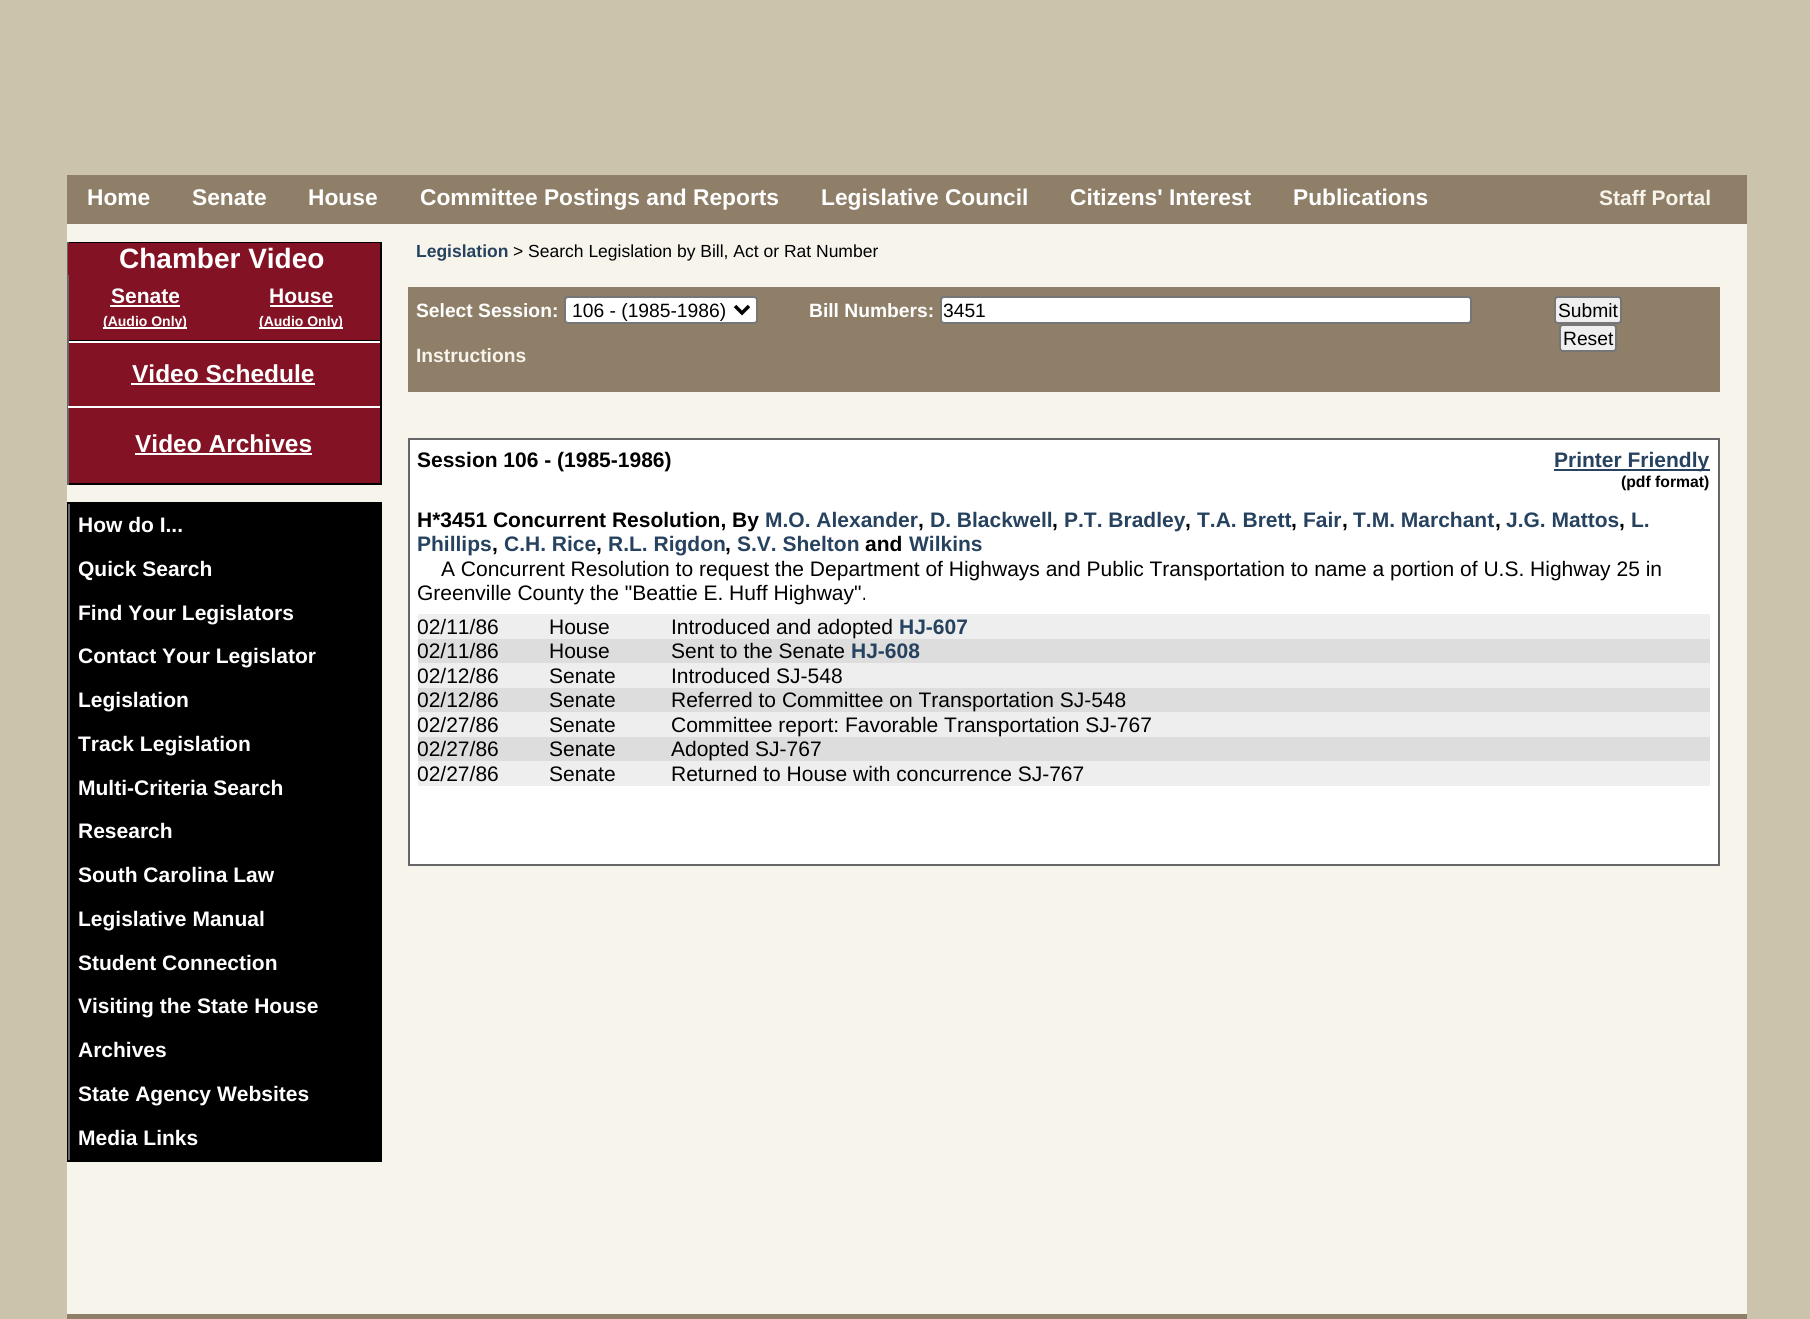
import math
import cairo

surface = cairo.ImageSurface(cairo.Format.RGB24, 1810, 1319)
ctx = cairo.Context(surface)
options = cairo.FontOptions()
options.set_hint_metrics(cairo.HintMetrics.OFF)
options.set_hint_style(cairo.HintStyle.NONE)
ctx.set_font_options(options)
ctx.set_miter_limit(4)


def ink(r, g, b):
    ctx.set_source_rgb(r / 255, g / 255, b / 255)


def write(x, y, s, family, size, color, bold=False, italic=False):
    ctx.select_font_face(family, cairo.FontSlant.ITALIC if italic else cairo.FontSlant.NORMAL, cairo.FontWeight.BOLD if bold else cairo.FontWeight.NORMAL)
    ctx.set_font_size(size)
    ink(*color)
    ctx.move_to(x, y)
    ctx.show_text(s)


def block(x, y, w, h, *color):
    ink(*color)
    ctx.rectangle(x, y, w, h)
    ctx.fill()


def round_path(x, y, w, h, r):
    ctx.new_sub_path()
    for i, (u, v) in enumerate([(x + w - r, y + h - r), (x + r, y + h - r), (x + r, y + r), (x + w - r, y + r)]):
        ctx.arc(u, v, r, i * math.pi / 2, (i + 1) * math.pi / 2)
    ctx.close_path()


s1 = dict(family="Liberation Sans", size=22.75, color=(255, 255, 255), bold=True)
s2 = dict(family="Liberation Sans", size=21, color=(247, 244, 236), bold=True)
s3 = dict(family="Liberation Sans", size=28, color=(255, 255, 255), bold=True)
s4 = dict(family="Liberation Sans", size=21, color=(255, 255, 255), bold=True)
s5 = dict(family="Liberation Sans", size=14, color=(255, 255, 255), bold=True)
s6 = dict(family="Liberation Sans", size=24.5, color=(255, 255, 255), bold=True)
s7 = dict(family="Liberation Sans", size=17.5, color=(38, 66, 95), bold=True)
s8 = dict(family="Liberation Sans", size=17.5, color=(0, 0, 0))
s9 = dict(family="Liberation Sans", size=19.25, color=(255, 255, 255), bold=True)
s10 = dict(family="Liberation Sans", size=19.25, color=(0, 0, 0))
s11 = dict(family="Liberation Sans", size=19.25, color=(247, 244, 236), bold=True)
s12 = dict(family="Liberation Sans", size=21, color=(0, 0, 0), bold=True)
s13 = dict(family="Liberation Sans", size=21, color=(38, 66, 95), bold=True)
s14 = dict(family="Liberation Sans", size=15.75, color=(0, 0, 0), bold=True)
s15 = dict(family="Liberation Sans", size=21, color=(0, 0, 0))

ink(203, 195, 172)
ctx.paint()
block(67, 224, 1680, 1090, 247, 244, 236)
block(67, 175, 1680, 49, 143, 127, 104)
write(87, 205, "Home", **s1)
write(192, 205, "Senate", **s1)
write(308, 205, "House", **s1)
write(420, 205, "Committee Postings and Reports", **s1)
write(821, 205, "Legislative Council", **s1)
write(1070, 205, "Citizens' Interest", **s1)
write(1293, 205, "Publications", **s1)
write(1599, 205, "Staff Portal", **s2)
block(69, 275, 311, 65, 131, 18, 36)
block(67, 242, 315, 1, 0, 0, 0)
block(380, 242, 2, 99, 0, 0, 0)
block(67, 340, 315, 1, 0, 0, 0)
block(67, 242, 2, 99, 102, 102, 102)
block(68, 243, 312, 32, 131, 18, 36)
write(119, 268, "Chamber Video", **s3)
write(111, 303, "Senate", **s4)
block(110, 305, 70, 2, 255, 255, 255)
block(103, 327, 84, 2, 255, 255, 255)
write(103, 326, "(Audio Only)", **s5)
write(269, 303, "House", **s4)
block(270, 305, 63, 2, 255, 255, 255)
block(259, 327, 84, 2, 255, 255, 255)
write(259, 326, "(Audio Only)", **s5)
block(69, 343, 311, 140, 131, 18, 36)
block(67, 341, 315, 2, 255, 255, 255)
block(380, 341, 2, 144, 0, 0, 0)
block(67, 483, 315, 2, 0, 0, 0)
block(67, 341, 2, 144, 102, 102, 102)
write(132, 382, "Video Schedule", **s6)
block(131, 383, 184, 2, 255, 255, 255)
block(68, 406, 312, 2, 255, 255, 255)
write(135, 452, "Video Archives", **s6)
block(135, 453, 177, 2, 255, 255, 255)
block(67, 502, 315, 660, 0, 0, 0)
block(68, 504, 2, 656, 102, 102, 102)
write(78, 532, "How do I...", **s4)
write(78, 576, "Quick Search", **s4)
write(78, 620, "Find Your Legislators", **s4)
write(78, 663, "Contact Your Legislator", **s4)
write(78, 707, "Legislation", **s4)
write(78, 751, "Track Legislation", **s4)
write(78, 795, "Multi-Criteria Search", **s4)
write(78, 838, "Research", **s4)
write(78, 882, "South Carolina Law", **s4)
write(78, 926, "Legislative Manual", **s4)
write(78, 970, "Student Connection", **s4)
write(78, 1013, "Visiting the State House", **s4)
write(78, 1057, "Archives", **s4)
write(78, 1101, "State Agency Websites", **s4)
write(78, 1145, "Media Links", **s4)
write(416, 257, "Legislation", **s7)
write(513, 257, "> Search Legislation by Bill, Act or Rat Number", **s8)
block(408, 287, 1312, 105, 143, 127, 104)
write(416, 317, "Select Session:", **s9)
round_path(565, 297, 192, 26, 3)
ctx.fill_preserve()
ink(118, 118, 118)
ctx.stroke()
ctx.new_path()
ctx.move_to(735, 306)
ctx.line_to(742, 313)
ctx.line_to(749, 306)
ink(0, 0, 0)
ctx.set_line_width(3.5)
ctx.stroke()
write(572, 317, "106 - (1985-1986)", **s10)
write(416, 362, "Instructions", **s11)
write(809, 317, "Bill Numbers:", **s9)
round_path(941, 297, 530, 26, 3)
ctx.fill_preserve()
ink(118, 118, 118)
ctx.set_line_width(2)
ctx.stroke()
write(943, 317, "3451", **s10)
ink(239, 239, 239)
round_path(1555, 297, 66, 26, 3)
ctx.fill_preserve()
ink(118, 118, 118)
ctx.stroke()
write(1558, 317, "Submit", **s10)
ink(239, 239, 239)
round_path(1560, 325, 56, 26, 3)
ctx.fill_preserve()
ink(118, 118, 118)
ctx.stroke()
write(1563, 345, "Reset", **s10)
ink(255, 255, 255)
ctx.rectangle(409, 439, 1310, 426)
ctx.fill_preserve()
ink(102, 102, 102)
ctx.stroke()
write(417, 467, "Session 106 - (1985-1986)", **s12)
block(1554, 469, 156, 2, 38, 66, 95)
write(1554, 467, "Printer Friendly", **s13)
write(1621, 487, "(pdf format)", **s14)
write(417, 527, "H*3451 Concurrent Resolution, By", **s12)
write(765, 527, "M.O. Alexander", **s13)
write(918, 527, ",", **s12)
write(930, 527, "D. Blackwell", **s13)
write(1052, 527, ",", **s12)
write(1064, 527, "P.T. Bradley", **s13)
write(1185, 527, ",", **s12)
write(1197, 527, "T.A. Brett", **s13)
write(1291, 527, ",", **s12)
write(1303, 527, "Fair", **s13)
write(1342, 527, ",", **s12)
write(1353, 527, "T.M. Marchant", **s13)
write(1495, 527, ",", **s12)
write(1506, 527, "J.G. Mattos", **s13)
write(1619, 527, ",", **s12)
write(1631, 527, "L.", **s13)
write(417, 551, "Phillips", **s13)
write(492, 551, ",", **s12)
write(504, 551, "C.H. Rice", **s13)
write(596, 551, ",", **s12)
write(608, 551, "R.L. Rigdon", **s13)
write(725, 551, ",", **s12)
write(737, 551, "S.V. Shelton", **s13)
write(865, 551, "and", **s12)
write(909, 551, "Wilkins", **s13)
write(441, 576, "A Concurrent Resolution to request the Department of Highways and Public Transportation to name a portion of U.S. Highway 25 in", **s15)
write(417, 600, "Greenville County the \"Beattie E. Huff Highway\".", **s15)
block(418, 614, 1292, 25, 238, 238, 238)
write(417, 634, "02/11/86", **s15)
write(549, 634, "House", **s15)
write(671, 634, "Introduced and adopted", **s15)
write(899, 634, "HJ-607", **s13)
block(418, 639, 1292, 24, 221, 221, 221)
write(417, 658, "02/11/86", **s15)
write(549, 658, "House", **s15)
write(671, 658, "Sent to the Senate", **s15)
write(851, 658, "HJ-608", **s13)
block(418, 663, 1292, 25, 238, 238, 238)
write(417, 683, "02/12/86", **s15)
write(549, 683, "Senate", **s15)
write(671, 683, "Introduced SJ-548", **s15)
block(418, 688, 1292, 24, 221, 221, 221)
write(417, 707, "02/12/86", **s15)
write(549, 707, "Senate", **s15)
write(671, 707, "Referred to Committee on Transportation SJ-548", **s15)
block(418, 712, 1292, 25, 238, 238, 238)
write(417, 732, "02/27/86", **s15)
write(549, 732, "Senate", **s15)
write(671, 732, "Committee report: Favorable Transportation SJ-767", **s15)
block(418, 737, 1292, 24, 221, 221, 221)
write(417, 756, "02/27/86", **s15)
write(549, 756, "Senate", **s15)
write(671, 756, "Adopted SJ-767", **s15)
block(418, 761, 1292, 25, 238, 238, 238)
write(417, 781, "02/27/86", **s15)
write(549, 781, "Senate", **s15)
write(671, 781, "Returned to House with concurrence SJ-767", **s15)
block(67, 1314, 1680, 5, 143, 127, 104)
surface.write_to_png("screenshot.png")
